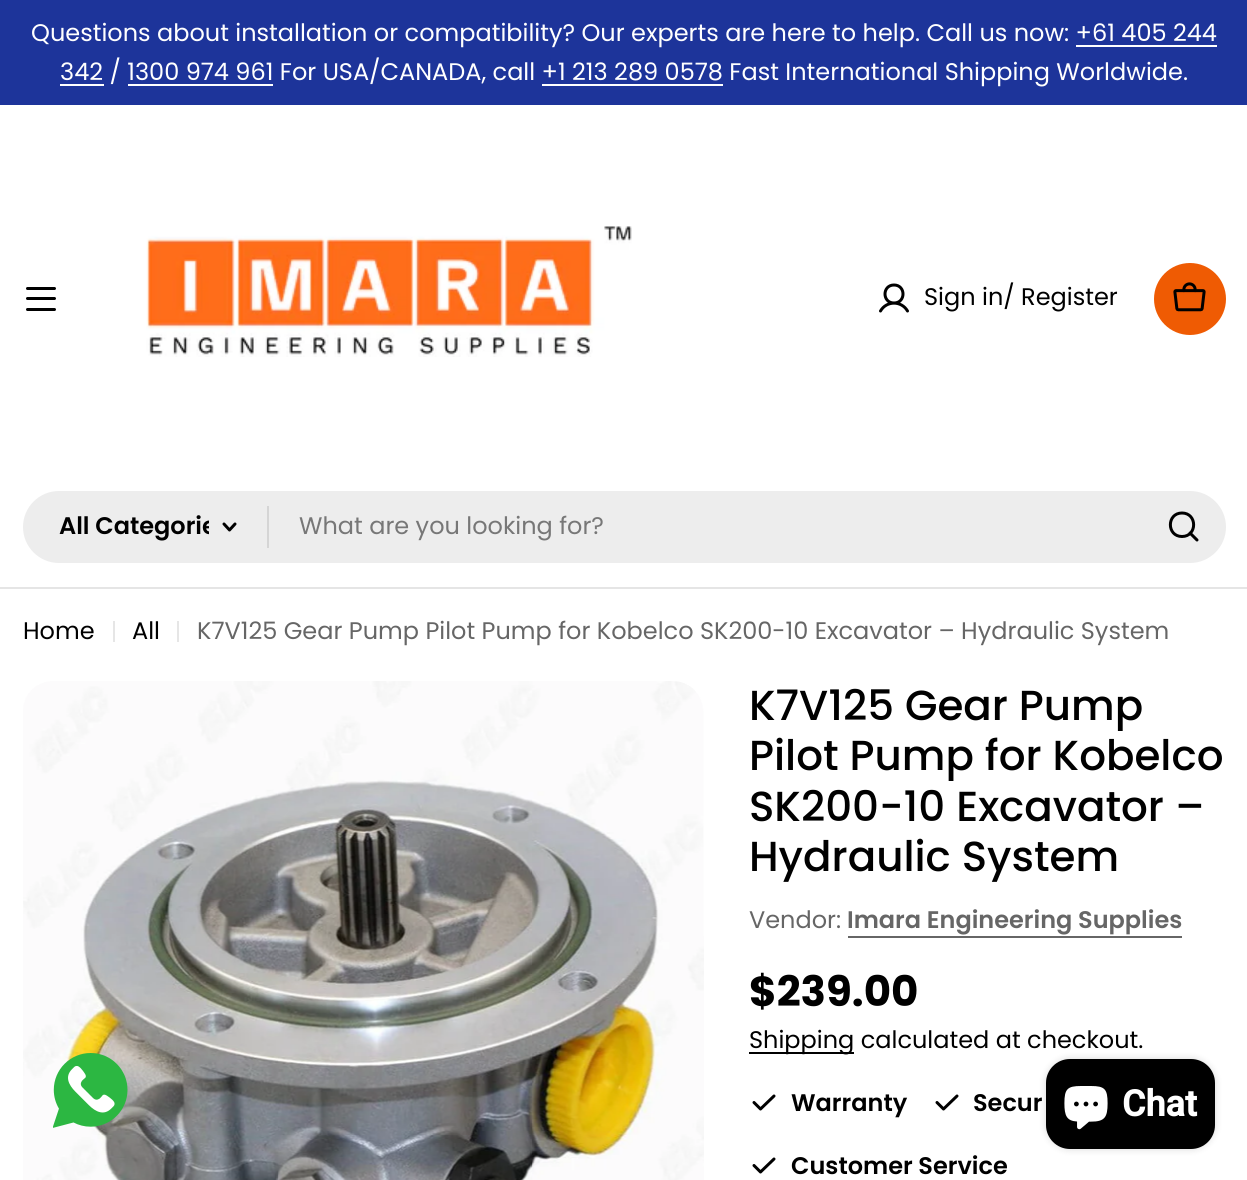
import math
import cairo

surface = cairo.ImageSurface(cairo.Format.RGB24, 1247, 1180)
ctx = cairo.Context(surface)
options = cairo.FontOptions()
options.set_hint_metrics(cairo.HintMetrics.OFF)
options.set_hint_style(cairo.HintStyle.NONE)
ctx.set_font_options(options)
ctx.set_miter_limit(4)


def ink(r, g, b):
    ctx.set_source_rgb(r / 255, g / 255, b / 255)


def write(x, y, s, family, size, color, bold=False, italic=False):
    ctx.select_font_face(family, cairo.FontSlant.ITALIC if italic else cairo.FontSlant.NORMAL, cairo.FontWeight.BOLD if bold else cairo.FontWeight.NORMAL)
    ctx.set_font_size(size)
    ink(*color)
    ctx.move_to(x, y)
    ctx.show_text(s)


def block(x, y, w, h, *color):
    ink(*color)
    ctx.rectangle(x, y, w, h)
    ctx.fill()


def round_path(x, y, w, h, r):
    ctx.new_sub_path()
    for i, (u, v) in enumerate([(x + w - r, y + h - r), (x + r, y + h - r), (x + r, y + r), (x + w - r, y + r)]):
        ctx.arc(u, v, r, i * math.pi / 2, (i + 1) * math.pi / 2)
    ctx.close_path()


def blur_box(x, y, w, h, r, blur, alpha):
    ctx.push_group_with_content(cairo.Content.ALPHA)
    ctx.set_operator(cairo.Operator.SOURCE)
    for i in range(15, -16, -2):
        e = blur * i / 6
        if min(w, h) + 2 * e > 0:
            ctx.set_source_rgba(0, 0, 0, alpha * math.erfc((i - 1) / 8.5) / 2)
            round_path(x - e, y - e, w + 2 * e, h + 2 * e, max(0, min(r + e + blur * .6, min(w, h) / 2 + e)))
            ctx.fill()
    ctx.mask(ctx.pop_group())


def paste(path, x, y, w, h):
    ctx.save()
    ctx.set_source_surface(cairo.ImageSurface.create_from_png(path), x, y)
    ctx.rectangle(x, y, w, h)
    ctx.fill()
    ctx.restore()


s1 = dict(family="Poppins", size=24, color=(255, 255, 255))
s2 = dict(family="Poppins", size=24, color=(0, 0, 0))
s3 = dict(family="Poppins SemiBold", size=24, color=(0, 0, 0))
s4 = dict(family="Poppins", size=24, color=(119, 119, 119))
s5 = dict(family="Poppins", size=24, color=(102, 102, 102))
s6 = dict(family="Poppins Medium", size=42, color=(0, 0, 0))
s7 = dict(family="Poppins SemiBold", size=24, color=(102, 102, 102))
s8 = dict(family="Poppins", size=42, color=(0, 0, 0), bold=True)
s9 = dict(family="Roboto", size=36, color=(255, 255, 255), bold=True)

ink(255, 255, 255)
ctx.paint()
block(0, 0, 1247, 105, 29, 52, 154)
write(31, 41, "Questions about installation or compatibility? Our experts are here to help. Call us now: +61 405 244", **s1)
block(60, 84, 44, 2, 255, 255, 255)
write(60, 80, "342 / 1300 974 961 For USA/CANADA, call +1 213 289 0578 Fast International Shipping Worldwide.", **s1)
block(1076, 45, 141, 2, 255, 255, 255)
block(128, 84, 145, 2, 255, 255, 255)
block(542, 84, 181, 2, 255, 255, 255)
block(0, 587, 1247, 2, 229, 229, 229)
ink(0, 0, 0)
round_path(26, 297, 30, 3, 1.5)
ctx.fill()
round_path(26, 287, 30, 3, 1.5)
ctx.fill()
round_path(26, 308, 30, 3, 1.5)
ctx.fill()
paste("pic1.png", 146, 226, 486, 131)
ctx.new_path()
ctx.move_to(894, 303)
ctx.curve_to(906, 303, 906, 285, 894, 285)
ctx.curve_to(882, 285, 882, 303, 894, 303)
ctx.close_path()
ctx.move_to(880.5, 311)
ctx.curve_to(886.5, 300.5, 901.5, 300.5, 907.5, 311)
ctx.set_line_width(3)
ctx.set_line_cap(cairo.LineCap.ROUND)
ctx.set_line_join(cairo.LineJoin.ROUND)
ctx.stroke()
write(924, 305, "Sign in/ Register", **s2)
ink(239, 91, 3)
ctx.new_path()
ctx.arc(1190, 299, 36, 0, 2 * math.pi)
ctx.fill()
paste("pic2.png", 1173, 282, 33, 30)
ink(237, 237, 237)
round_path(23, 491, 1203, 72, 36)
ctx.fill()
ctx.save()
ctx.rectangle(59, 491, 150, 72)
ctx.clip()
write(59, 534, "All Categorie", **s3)
ctx.restore()
ctx.new_path()
ctx.move_to(235, 524)
ctx.line_to(229.5, 530)
ctx.line_to(224, 524)
ink(0, 0, 0)
ctx.stroke()
block(267, 506, 2, 42, 213, 213, 213)
write(299, 534, "What are you looking for?", **s4)
ctx.new_path()
ctx.move_to(1182, 536.5)
ctx.curve_to(1197.5, 536.5, 1197.5, 513, 1182, 513)
ctx.curve_to(1166.5, 513, 1166.5, 536.5, 1182, 536.5)
ctx.close_path()
ctx.move_to(1190, 533)
ctx.line_to(1197, 540)
ink(0, 0, 0)
ctx.stroke()
write(23, 639, "Home", **s2)
block(113, 621, 2, 21, 230, 230, 230)
write(132, 639, "All", **s2)
block(177, 621, 2, 21, 230, 230, 230)
write(197, 639, "K7V125 Gear Pump Pilot Pump for Kobelco SK200-10 Excavator – Hydraulic System", **s5)
paste("pic3.png", 23, 681, 681, 499)
write(749, 720, "K7V125 Gear Pump", **s6)
write(749, 770, "Pilot Pump for Kobelco", **s6)
write(749, 821, "SK200-10 Excavator –", **s6)
write(749, 871, "Hydraulic System", **s6)
write(749, 928, "Vendor:", **s5)
write(847, 928, "Imara Engineering Supplies", **s7)
block(848, 936, 334, 2, 102, 102, 102)
write(749, 1006, "$239.00", **s8)
block(749, 1052, 105, 2, 0, 0, 0)
write(749, 1048, "Shipping calculated at checkout.", **s2)
ctx.new_path()
ctx.move_to(774, 1096)
ctx.line_to(760.5, 1109)
ctx.line_to(754, 1102.5)
ctx.stroke()
write(791, 1111, "Warranty", **s3)
ctx.new_path()
ctx.move_to(957, 1096)
ctx.line_to(943.5, 1109)
ctx.line_to(937, 1102.5)
ctx.stroke()
write(973, 1111, "Secur", **s3)
ctx.new_path()
ctx.move_to(774, 1159)
ctx.line_to(760.5, 1172)
ctx.line_to(754, 1165.5)
ctx.stroke()
write(791, 1174, "Customer Service", **s3)
paste("pic4.png", 53, 1053, 75, 75)
ink(0, 0, 0)
blur_box(1046, 1059, 169, 90, 24, 4, 0.15)
ink(0, 0, 0)
round_path(1046, 1059, 169, 90, 24)
ctx.fill()
paste("pic5.png", 1064, 1086, 44, 44)
write(1122, 1116, "Chat", **s9)
surface.write_to_png("screenshot.png")
